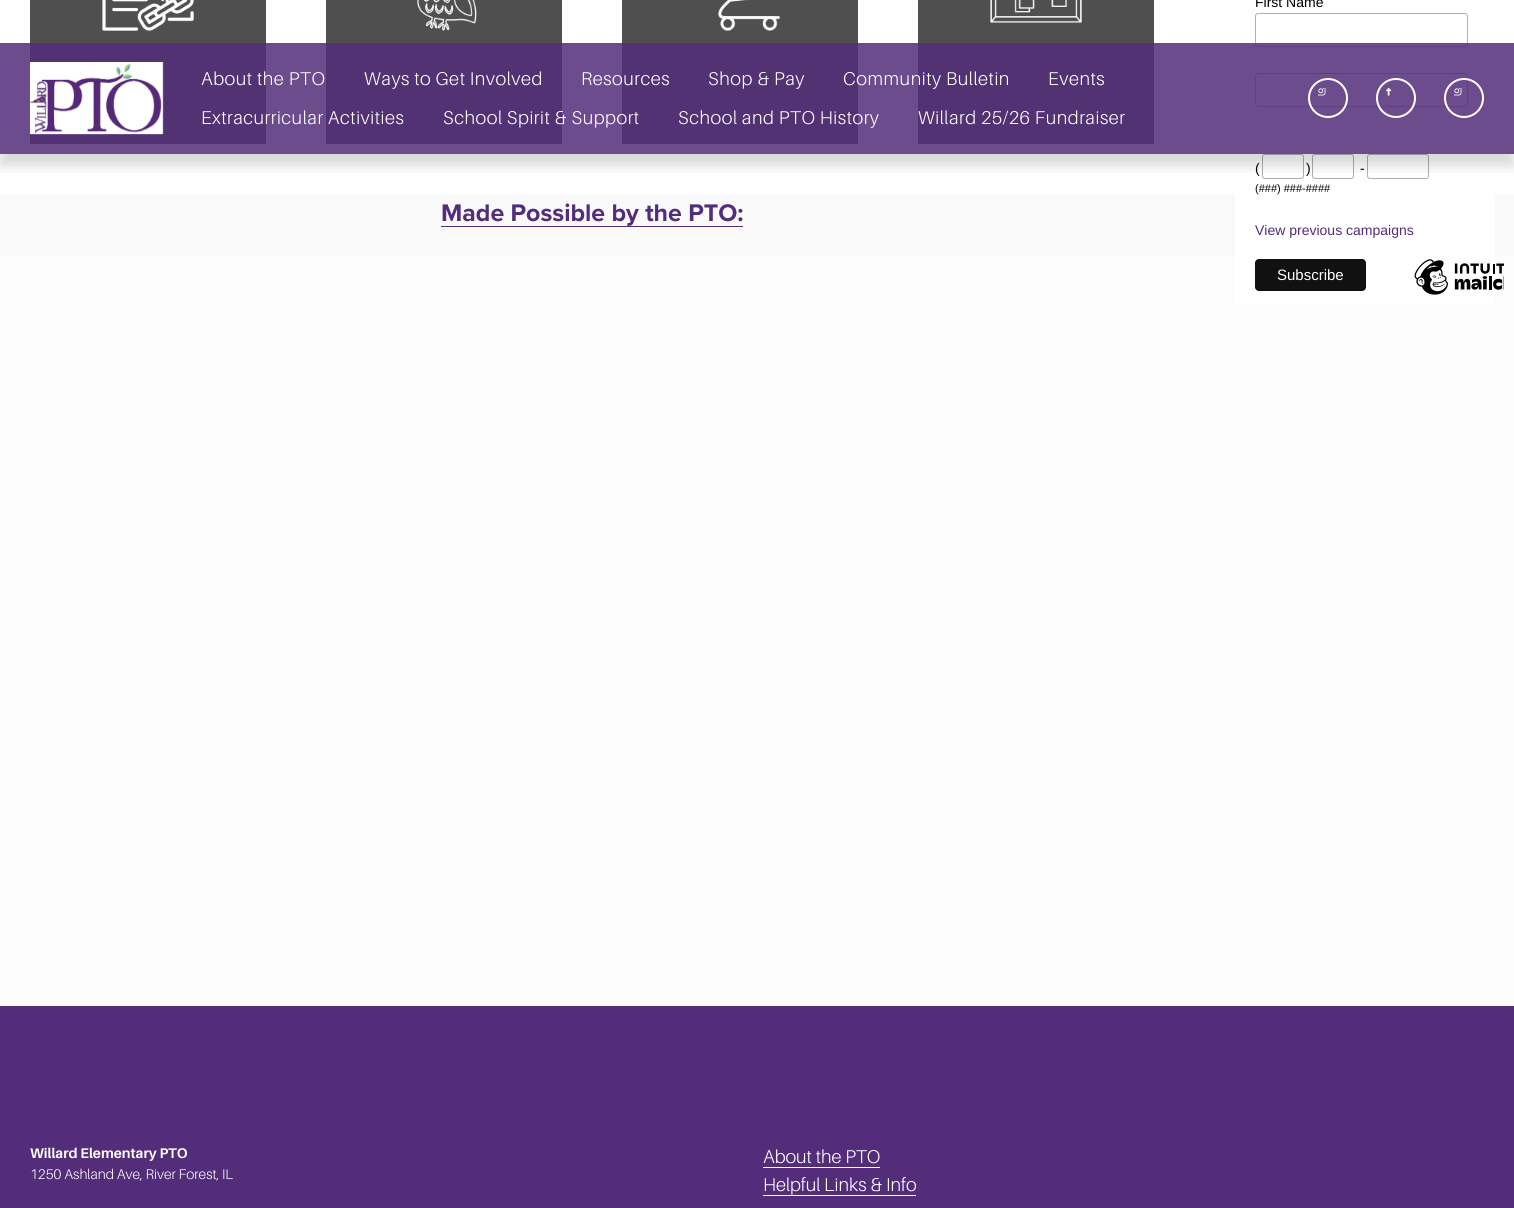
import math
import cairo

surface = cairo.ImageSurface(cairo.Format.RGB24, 1514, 1208)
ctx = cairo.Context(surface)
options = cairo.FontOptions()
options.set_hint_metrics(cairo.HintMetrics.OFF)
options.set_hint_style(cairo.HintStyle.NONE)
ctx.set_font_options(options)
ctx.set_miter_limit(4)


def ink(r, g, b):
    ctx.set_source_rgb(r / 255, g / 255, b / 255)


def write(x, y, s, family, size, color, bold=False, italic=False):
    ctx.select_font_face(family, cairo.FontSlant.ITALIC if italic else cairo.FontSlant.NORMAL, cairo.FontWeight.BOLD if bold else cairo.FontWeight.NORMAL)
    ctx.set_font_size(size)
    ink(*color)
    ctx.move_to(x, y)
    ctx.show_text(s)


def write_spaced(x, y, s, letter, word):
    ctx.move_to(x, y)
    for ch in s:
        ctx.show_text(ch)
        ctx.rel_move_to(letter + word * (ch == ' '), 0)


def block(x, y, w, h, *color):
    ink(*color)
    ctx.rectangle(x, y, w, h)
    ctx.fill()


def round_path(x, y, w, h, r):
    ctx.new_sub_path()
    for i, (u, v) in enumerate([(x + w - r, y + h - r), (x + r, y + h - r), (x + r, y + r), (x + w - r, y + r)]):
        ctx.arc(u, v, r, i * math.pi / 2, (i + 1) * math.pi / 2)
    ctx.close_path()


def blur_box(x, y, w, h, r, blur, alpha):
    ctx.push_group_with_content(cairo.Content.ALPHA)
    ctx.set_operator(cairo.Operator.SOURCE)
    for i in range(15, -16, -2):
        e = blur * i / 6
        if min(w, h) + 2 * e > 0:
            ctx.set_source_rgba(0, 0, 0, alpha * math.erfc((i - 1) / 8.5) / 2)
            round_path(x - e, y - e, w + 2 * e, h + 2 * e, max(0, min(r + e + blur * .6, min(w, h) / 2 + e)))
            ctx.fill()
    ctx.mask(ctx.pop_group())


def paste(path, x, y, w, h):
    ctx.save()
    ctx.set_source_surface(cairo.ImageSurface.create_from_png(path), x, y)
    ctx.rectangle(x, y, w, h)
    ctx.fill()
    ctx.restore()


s1 = dict(family="Liberation Sans", size=14, color=(0, 0, 0))
s2 = dict(family="Liberation Sans", size=11, color=(0, 0, 0))
s3 = dict(family="Liberation Sans", size=14, color=(83, 45, 121))
s4 = dict(family="Liberation Sans", size=15, color=(255, 255, 255))
s5 = dict(family="Proxima Nova", size=24.9, color=(83, 45, 121), bold=True)
s6 = dict(family="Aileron", size=14, color=(255, 255, 255), bold=True)
s7 = dict(family="Aileron Light", size=14, color=(255, 255, 255))
s8 = dict(family="Aileron Light", size=18.5, color=(255, 255, 255))

ink(255, 255, 255)
ctx.paint()
block(30, 0, 236, 144, 79, 79, 79)
paste("pic1.png", 102, 0, 92, 31)
block(326, 0, 236, 144, 79, 79, 79)
paste("pic2.png", 417, 0, 60, 31)
block(622, 0, 236, 144, 79, 79, 79)
paste("pic3.png", 718, 0, 63, 31)
block(918, 0, 236, 144, 79, 79, 79)
paste("pic4.png", 990, 0, 92, 23)
block(0, 194, 1514, 62, 249, 249, 249)
block(0, 256, 1514, 750, 252, 252, 252)
block(1235, 194, 260, 111, 255, 255, 255)
write(1255, 7, "First Name", **s1)
round_path(1255.5, 13.5, 212, 33, 2.5)
ink(171, 176, 178)
ctx.set_line_width(1)
ctx.stroke()
round_path(1255.5, 73.5, 212, 33, 2.5)
ctx.stroke()
write(1255, 173, "(", **s1)
round_path(1262.5, 154.5, 41, 24, 2.5)
ink(171, 176, 178)
ctx.stroke()
write(1306, 173, ")", **s1)
round_path(1312.5, 154.5, 41, 24, 2.5)
ink(171, 176, 178)
ctx.stroke()
write(1360, 173, "-", **s1)
round_path(1367.5, 154.5, 61, 24, 2.5)
ink(171, 176, 178)
ctx.stroke()
write(1255, 192, "(###) ###-####", **s2)
write(1255, 235, "View previous campaigns", **s3)
ink(17, 17, 17)
round_path(1255, 259, 111, 32, 4)
ctx.fill()
write(1277, 280, "Subscribe", **s4)
paste("pic5.png", 1414, 259, 90, 36)
write(441, 221, "Made Possible by the PTO:", **s5)
block(441, 226, 302, 1, 83, 45, 121)
ctx.save()
ctx.rectangle(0, 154, 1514, 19)
ctx.clip()
ink(0, 0, 0)
blur_box(0, 55, 1514, 111, 0, 6, 0.15)
ctx.restore()
ctx.set_source_rgba(0.329, 0.176, 0.482, 0.85)
ctx.rectangle(0, 43, 1514, 111)
ctx.fill()
paste("pic6.png", 30, 62, 134, 73)
ctx.select_font_face("Aileron Light")
ctx.set_font_size(18.5)
ink(255, 255, 255)
write_spaced(201, 85, "About the PTO", 0.55, 0)
write_spaced(364, 85, "Ways to Get Involved", 0.55, 0)
write_spaced(581, 85, "Resources", 0.55, 0)
write_spaced(708, 85, "Shop & Pay", 0.55, 0)
write_spaced(843, 85, "Community Bulletin", 0.55, 0)
write_spaced(1048, 85, "Events", 0.55, 0)
write_spaced(201, 124, "Extracurricular Activities", 0.55, 0)
write_spaced(443, 124, "School Spirit & Support", 0.55, 0)
write_spaced(678, 124, "School and PTO History", 0.55, 0)
write_spaced(918, 124, "Willard 25/26 Fundraiser", 0.55, 0)
ctx.new_path()
ctx.arc(1328, 98, 19, 0, 2 * math.pi)
ctx.set_line_width(2)
ctx.stroke()
paste("pic7.png", 1318, 88, 8, 8)
ctx.arc(1396, 98, 19, 0, 2 * math.pi)
ctx.stroke()
paste("pic8.png", 1386, 88, 6, 8)
ctx.arc(1464, 98, 19, 0, 2 * math.pi)
ctx.stroke()
paste("pic7.png", 1454, 88, 8, 8)
block(0, 1006, 1514, 202, 83, 45, 121)
write(30, 1158, "Willard Elementary PTO", **s6)
write(30, 1179, "1250 Ashland Ave, River Forest, IL", **s7)
write(763, 1163, "About the PTO", **s8)
block(763, 1167, 117, 1, 255, 255, 255)
write(763, 1191, "Helpful Links & Info", **s8)
block(763, 1195, 153, 1, 255, 255, 255)
surface.write_to_png("screenshot.png")
